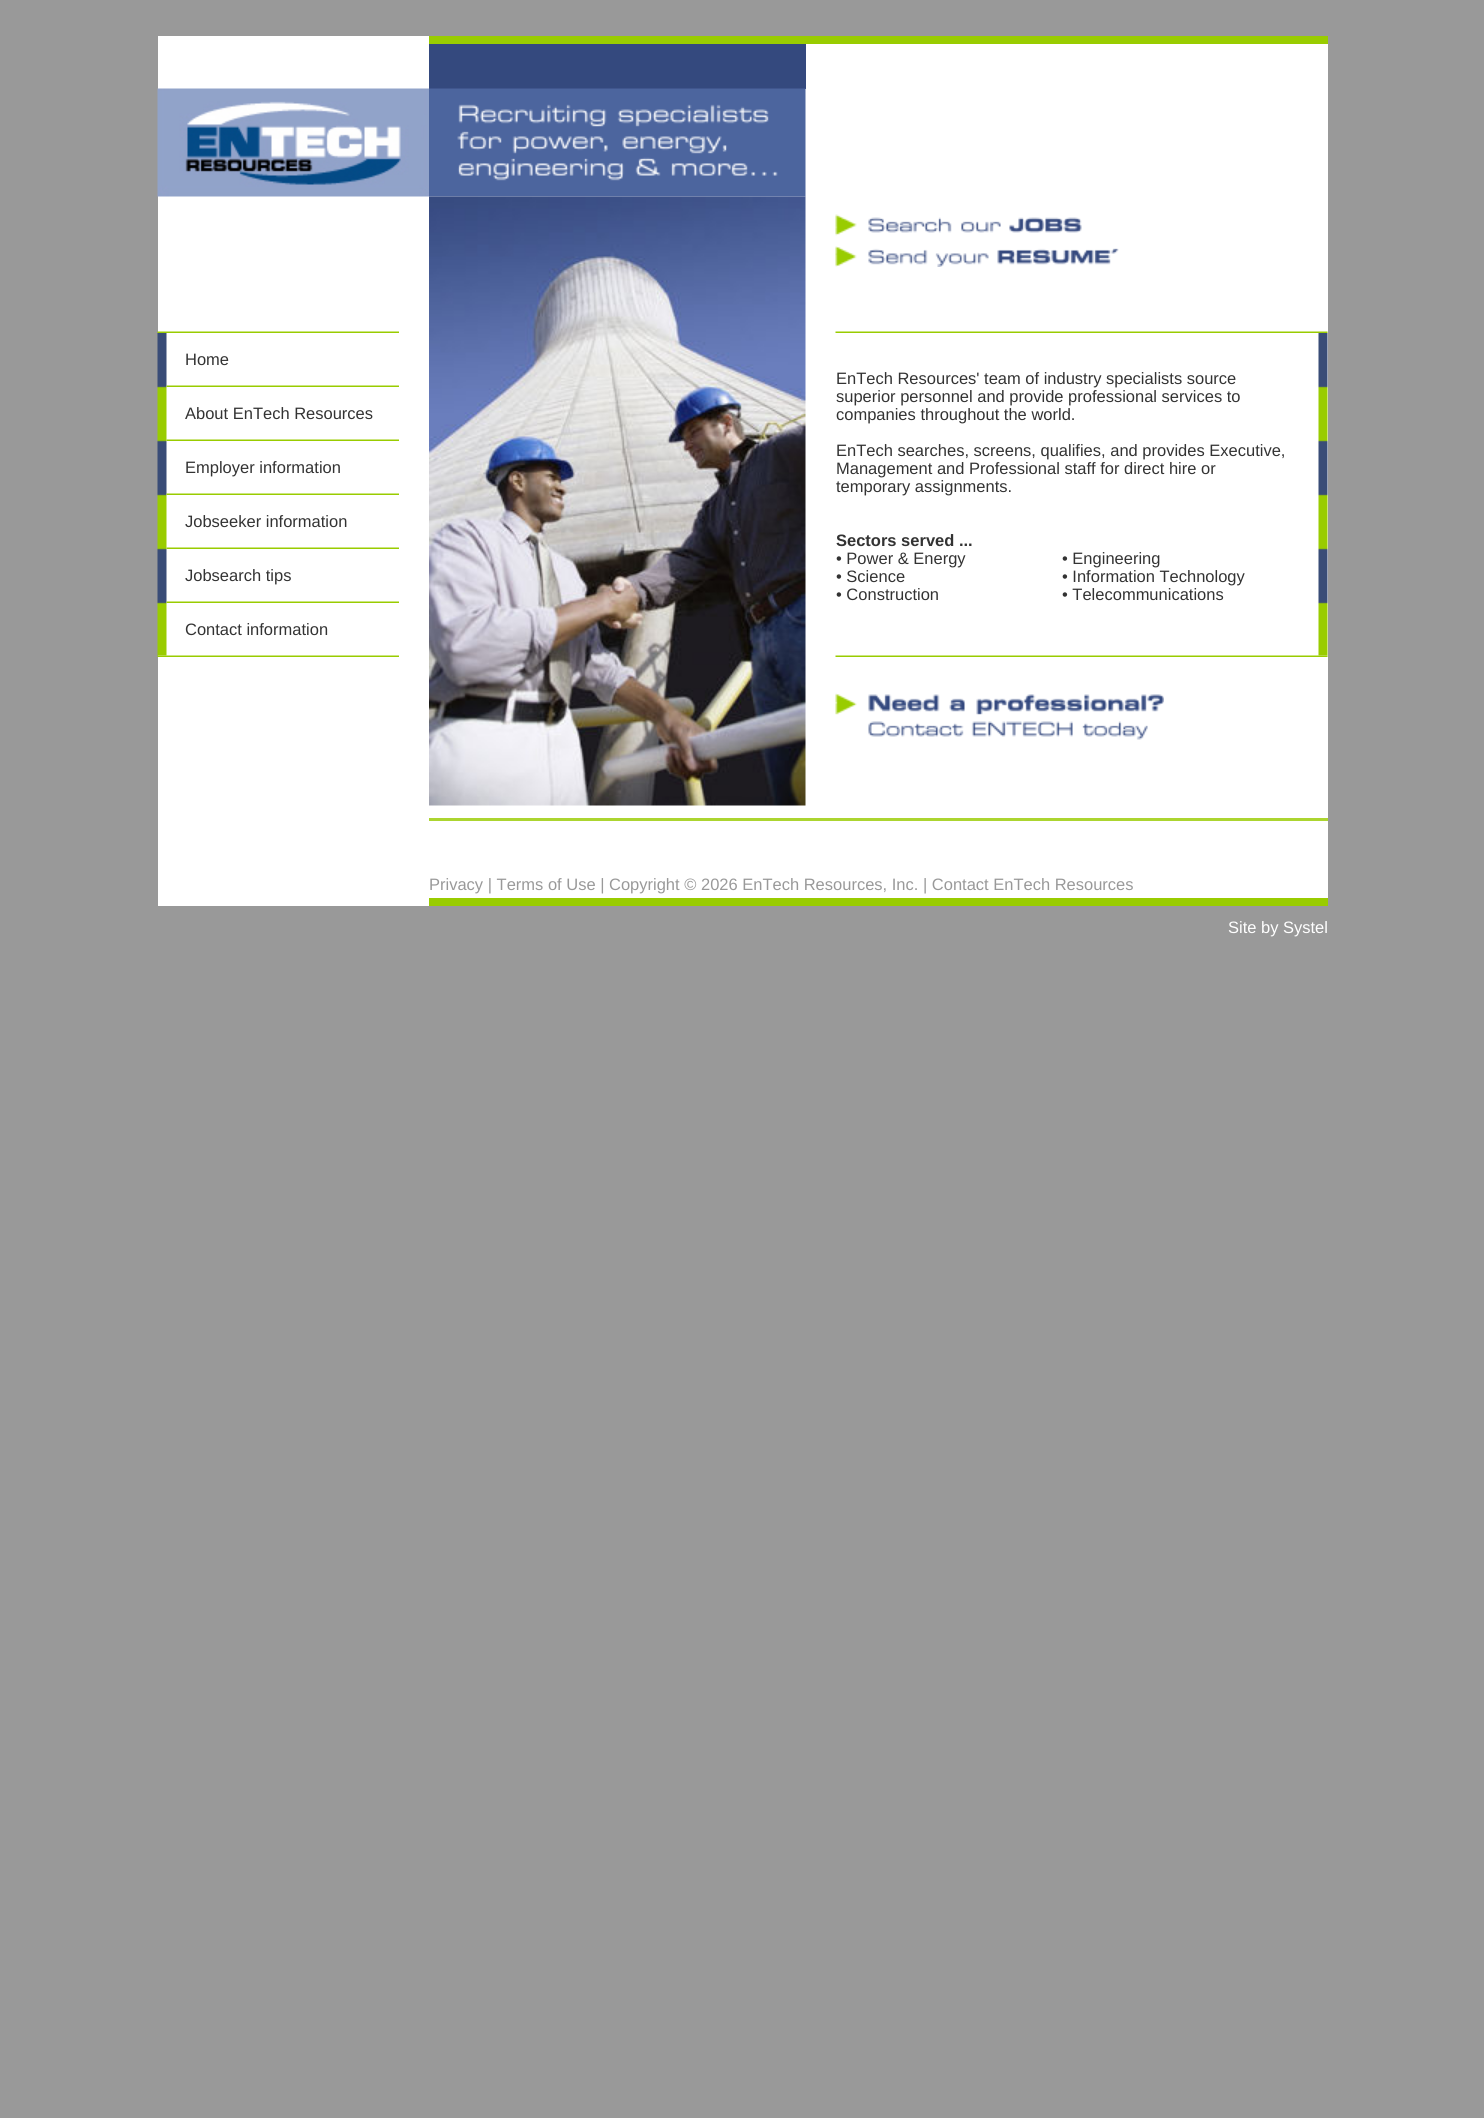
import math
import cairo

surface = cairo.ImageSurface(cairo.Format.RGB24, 1484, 2118)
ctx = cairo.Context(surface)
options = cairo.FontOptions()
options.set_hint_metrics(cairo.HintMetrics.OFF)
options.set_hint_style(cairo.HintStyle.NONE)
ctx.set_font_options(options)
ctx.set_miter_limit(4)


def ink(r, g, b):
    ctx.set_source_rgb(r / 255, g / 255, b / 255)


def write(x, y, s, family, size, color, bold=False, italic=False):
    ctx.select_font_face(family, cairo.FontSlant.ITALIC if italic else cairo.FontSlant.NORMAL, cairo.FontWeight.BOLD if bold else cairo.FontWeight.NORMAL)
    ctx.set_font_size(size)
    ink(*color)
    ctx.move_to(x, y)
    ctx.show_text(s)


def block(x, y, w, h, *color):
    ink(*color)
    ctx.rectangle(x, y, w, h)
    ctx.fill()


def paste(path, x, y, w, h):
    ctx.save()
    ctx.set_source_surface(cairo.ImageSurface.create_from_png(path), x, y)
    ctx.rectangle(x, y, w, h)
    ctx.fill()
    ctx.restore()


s1 = dict(family="Liberation Sans", size=16.5, color=(51, 51, 51))
s2 = dict(family="Liberation Sans", size=16.5, color=(51, 51, 51), bold=True)
s3 = dict(family="Liberation Sans", size=16.5, color=(153, 153, 153))
s4 = dict(family="Liberation Sans", size=16.5, color=(255, 255, 255))

ink(153, 153, 153)
ctx.paint()
block(158, 36, 1170, 870, 255, 255, 255)
block(429, 36, 899, 8, 153, 204, 0)
block(429, 44, 377, 45, 52, 73, 126)
paste("pic1.png", 157, 88, 272, 109)
paste("pic2.png", 429, 88, 377, 109)
paste("pic3.png", 157, 331, 242, 2)
paste("pic4.png", 157, 333, 10, 323)
write(185, 365, "Home", **s1)
paste("pic5.png", 166, 385, 233, 2)
write(185, 419, "About EnTech Resources", **s1)
paste("pic6.png", 166, 439, 233, 2)
write(185, 473, "Employer information", **s1)
paste("pic5.png", 166, 493, 233, 2)
write(185, 527, "Jobseeker information", **s1)
paste("pic6.png", 166, 547, 233, 2)
write(185, 581, "Jobsearch tips", **s1)
paste("pic5.png", 166, 601, 233, 2)
write(185, 635, "Contact information", **s1)
paste("pic7.png", 157, 655, 242, 2)
paste("pic8.png", 429, 196, 377, 610)
paste("pic9.png", 835, 214, 247, 22)
paste("pic10.png", 835, 246, 284, 21)
paste("pic11.png", 835, 331, 493, 2)
write(836, 384, "EnTech Resources' team of industry specialists source", **s1)
write(836, 402, "superior personnel and provide professional services to", **s1)
write(836, 420, "companies throughout the world.", **s1)
write(836, 456, "EnTech searches, screens, qualifies, and provides Executive,", **s1)
write(836, 474, "Management and Professional staff for direct hire or", **s1)
write(836, 492, "temporary assignments.", **s1)
write(836, 546, "Sectors served ...", **s2)
write(836, 564, "• Power & Energy", **s1)
write(836, 582, "• Science", **s1)
write(836, 600, "• Construction", **s1)
write(1062, 564, "• Engineering", **s1)
write(1062, 582, "• Information Technology", **s1)
write(1062, 600, "• Telecommunications", **s1)
paste("pic12.png", 1318, 333, 10, 323)
paste("pic13.png", 835, 655, 493, 2)
paste("pic14.png", 835, 693, 329, 47)
block(429, 818, 899, 3, 172, 213, 48)
write(429, 890, "Privacy | Terms of Use | Copyright © 2026 EnTech Resources, Inc. | Contact EnTech Resources", **s3)
block(429, 898, 899, 8, 153, 204, 0)
write(1228, 933, "Site by Systel", **s4)
surface.write_to_png("screenshot.png")
